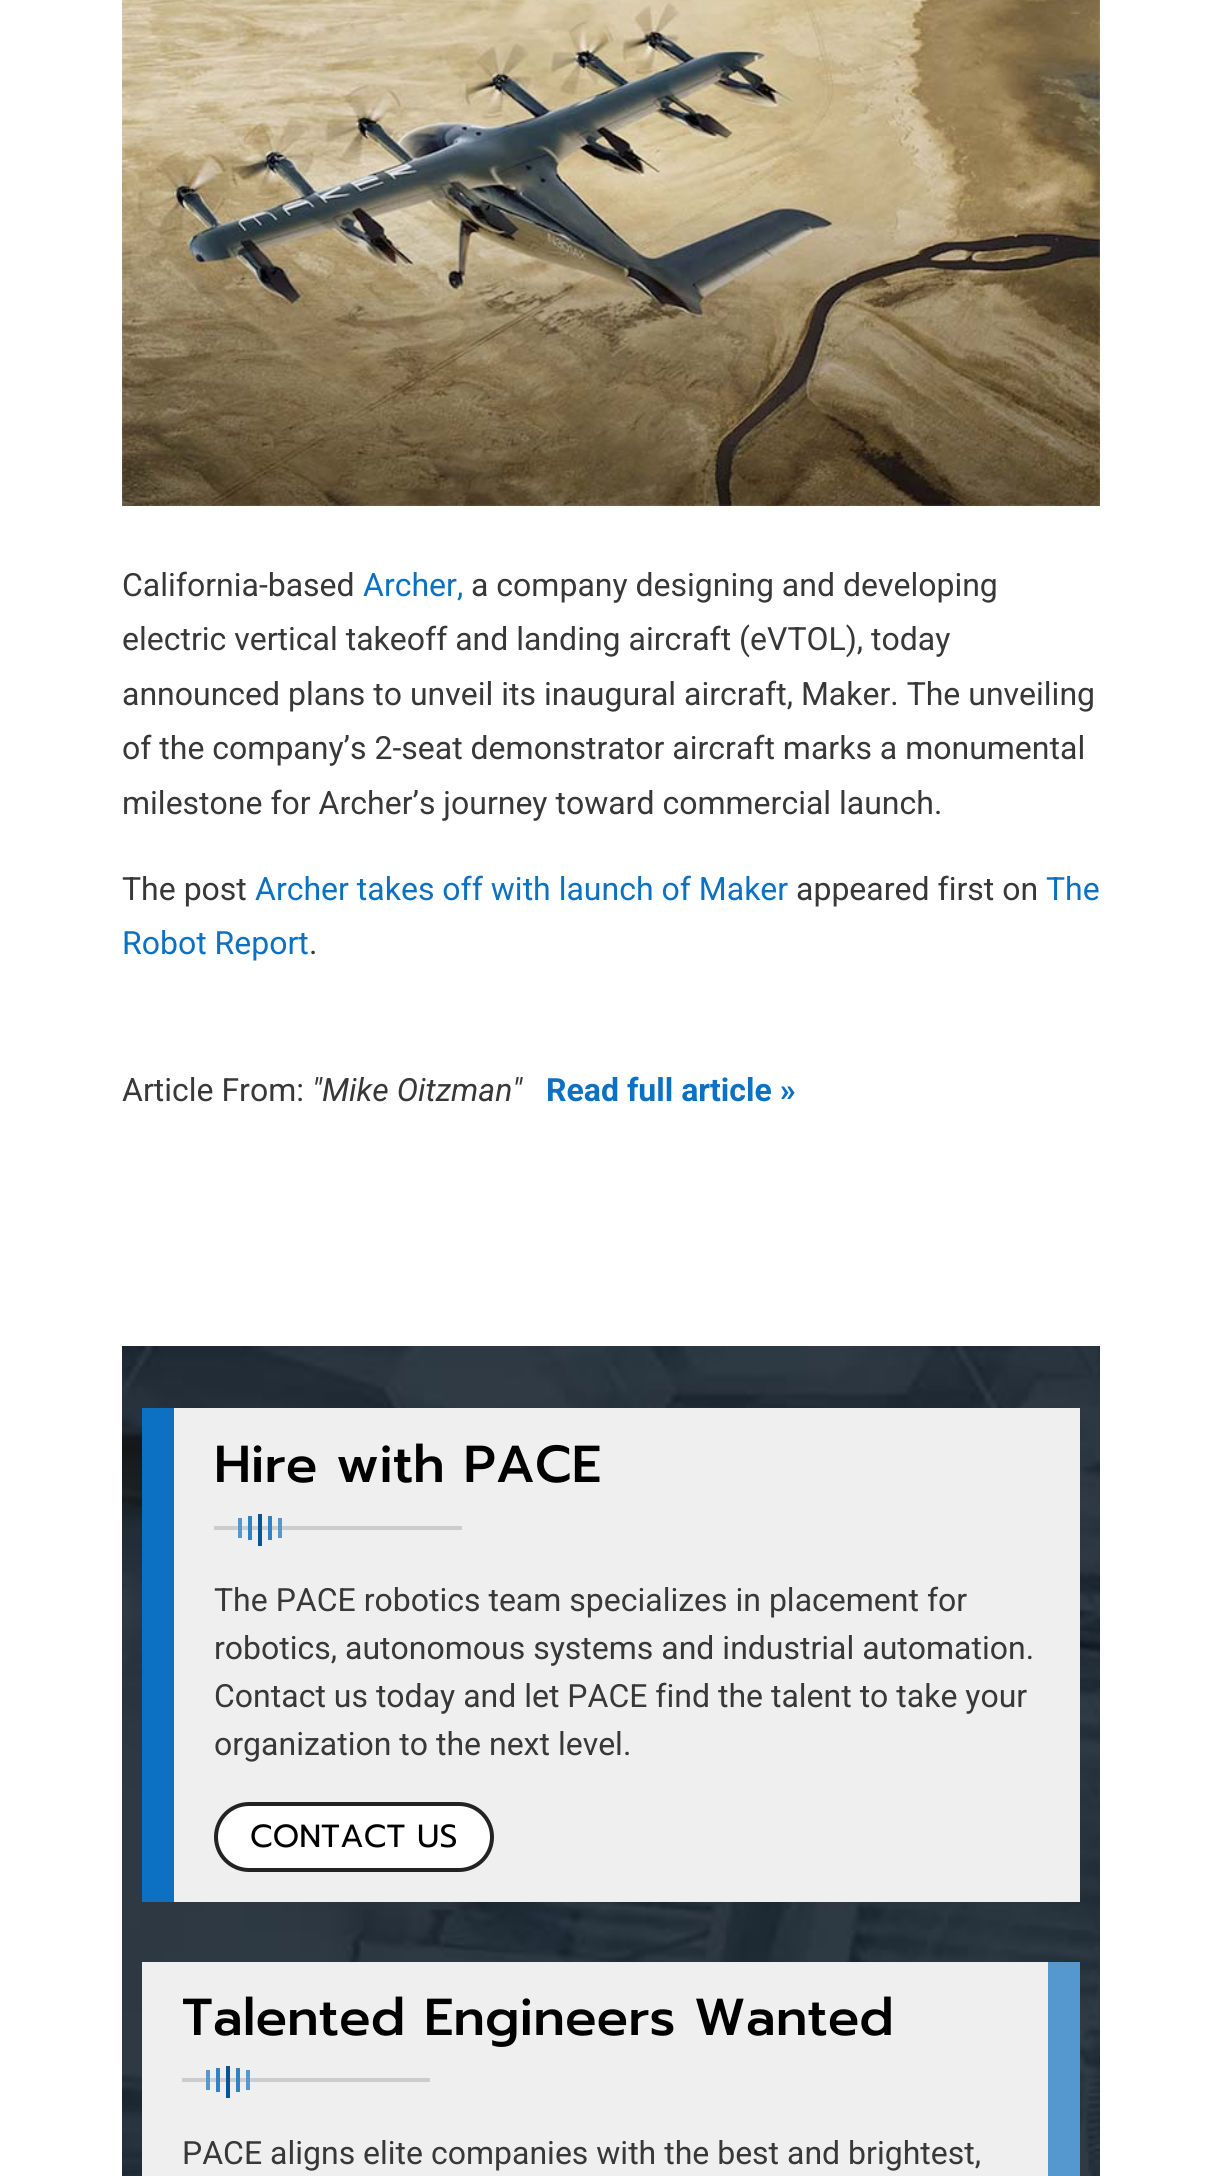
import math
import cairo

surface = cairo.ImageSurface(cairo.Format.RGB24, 1222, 2176)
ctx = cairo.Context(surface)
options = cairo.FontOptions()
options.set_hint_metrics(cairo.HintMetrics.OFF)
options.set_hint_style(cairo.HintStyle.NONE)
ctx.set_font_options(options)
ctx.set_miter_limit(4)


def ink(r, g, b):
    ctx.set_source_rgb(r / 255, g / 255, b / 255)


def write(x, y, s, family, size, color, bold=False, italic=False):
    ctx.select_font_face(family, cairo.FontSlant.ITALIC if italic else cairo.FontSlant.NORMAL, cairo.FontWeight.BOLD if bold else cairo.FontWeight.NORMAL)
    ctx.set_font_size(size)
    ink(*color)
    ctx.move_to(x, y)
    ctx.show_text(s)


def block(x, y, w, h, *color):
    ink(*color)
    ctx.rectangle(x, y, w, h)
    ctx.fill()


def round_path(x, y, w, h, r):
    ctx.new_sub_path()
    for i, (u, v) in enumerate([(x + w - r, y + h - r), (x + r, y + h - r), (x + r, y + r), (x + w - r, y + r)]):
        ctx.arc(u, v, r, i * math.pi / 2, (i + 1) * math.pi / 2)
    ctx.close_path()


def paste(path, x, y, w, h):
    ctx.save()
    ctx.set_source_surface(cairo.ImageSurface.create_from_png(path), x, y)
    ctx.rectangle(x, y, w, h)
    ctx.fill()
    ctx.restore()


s1 = dict(family="Roboto", size=32, color=(56, 56, 56))
s2 = dict(family="Roboto", size=32, color=(12, 113, 195))
s3 = dict(family="Roboto", size=32, color=(56, 56, 56), italic=True)
s4 = dict(family="Roboto", size=32, color=(12, 113, 195), bold=True)
s5 = dict(family="Prompt Medium", size=52, color=(0, 0, 0))
s6 = dict(family="Prompt", size=32, color=(0, 0, 0))

ink(255, 255, 255)
ctx.paint()
paste("pic1.png", 122, 0, 978, 506)
write(122, 596, "California-based", **s1)
write(363, 596, "Archer,", **s2)
write(471, 596, "a company designing and developing", **s1)
write(122, 650, "electric vertical takeoff and landing aircraft (eVTOL), today", **s1)
write(122, 705, "announced plans to unveil its inaugural aircraft, Maker. The unveiling", **s1)
write(122, 759, "of the company’s 2-seat demonstrator aircraft marks a monumental", **s1)
write(122, 814, "milestone for Archer’s journey toward commercial launch.", **s1)
write(122, 900, "The post", **s1)
write(255, 900, "Archer takes off with launch of Maker", **s2)
write(796, 900, "appeared first on", **s1)
write(1046, 900, "The", **s2)
write(122, 954, "Robot Report", **s2)
write(309, 954, ".", **s1)
write(122, 1101, "Article From:", **s1)
write(312, 1101, "\"Mike Oitzman\"", **s3)
write(546, 1101, "Read full article »", **s4)
paste("pic2.png", 122, 1346, 978, 830)
block(174, 1408, 906, 494, 239, 239, 239)
block(142, 1408, 32, 494, 12, 113, 195)
write(214, 1482, "Hire with PACE", **s5)
block(214, 1526, 248, 4, 204, 204, 204)
block(238, 1518, 4, 20, 85, 152, 208)
block(248, 1516, 4, 24, 48, 130, 199)
block(258, 1514, 4, 32, 7, 85, 150)
block(268, 1516, 4, 24, 48, 130, 199)
block(278, 1518, 4, 20, 85, 152, 208)
write(214, 1611, "The PACE robotics team specializes in placement for", **s1)
write(214, 1659, "robotics, autonomous systems and industrial automation.", **s1)
write(214, 1707, "Contact us today and let PACE find the talent to take your", **s1)
write(214, 1755, "organization to the next level.", **s1)
ink(255, 255, 255)
round_path(216, 1804, 276, 66, 33)
ctx.fill_preserve()
ink(35, 35, 35)
ctx.set_line_width(4)
ctx.stroke()
write(250, 1847, "CONTACT US", **s6)
block(142, 1962, 906, 214, 239, 239, 239)
block(1048, 1962, 32, 214, 85, 152, 208)
write(182, 2035, "Talented Engineers Wanted", **s5)
block(182, 2078, 248, 4, 204, 204, 204)
block(206, 2070, 4, 20, 85, 152, 208)
block(216, 2068, 4, 24, 48, 130, 199)
block(226, 2066, 4, 32, 7, 85, 150)
block(236, 2068, 4, 24, 48, 130, 199)
block(246, 2070, 4, 20, 85, 152, 208)
write(182, 2164, "PACE aligns elite companies with the best and brightest,", **s1)
surface.write_to_png("screenshot.png")
